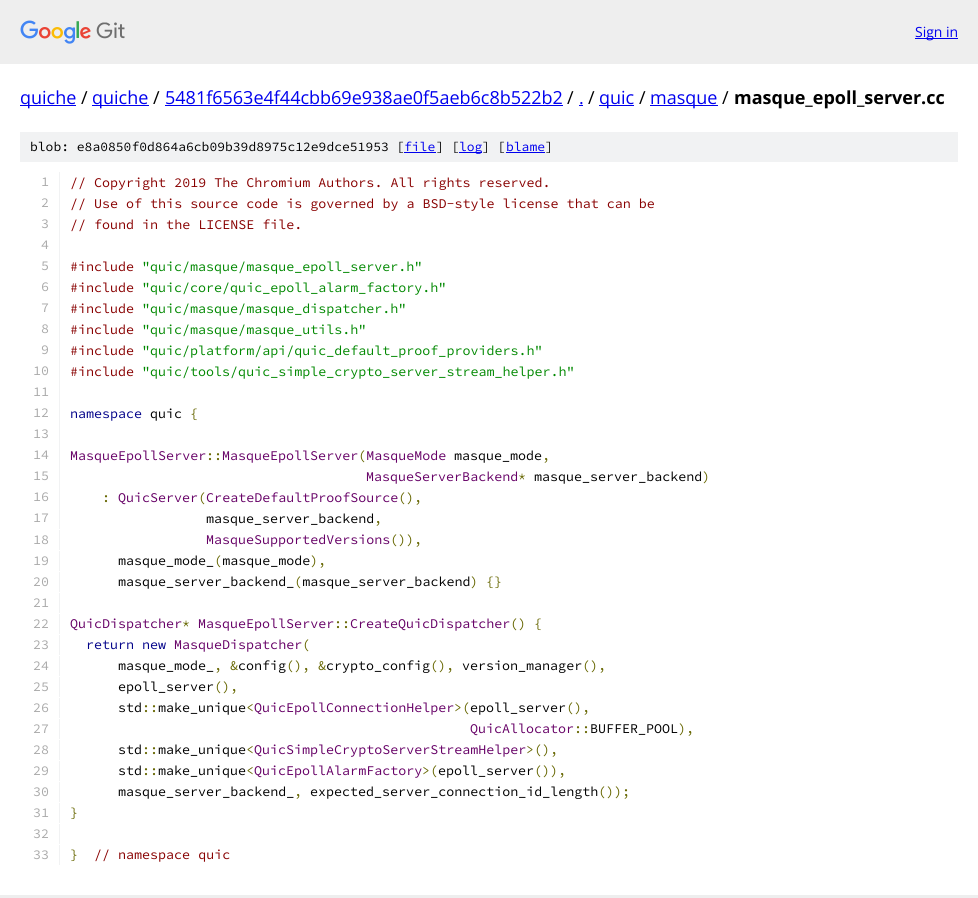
import math
import cairo

surface = cairo.ImageSurface(cairo.Format.RGB24, 978, 898)
ctx = cairo.Context(surface)
options = cairo.FontOptions()
options.set_hint_metrics(cairo.HintMetrics.OFF)
options.set_hint_style(cairo.HintStyle.NONE)
ctx.set_font_options(options)
ctx.set_miter_limit(4)


def ink(r, g, b):
    ctx.set_source_rgb(r / 255, g / 255, b / 255)


def write(x, y, s, family, size, color, bold=False, italic=False):
    ctx.select_font_face(family, cairo.FontSlant.ITALIC if italic else cairo.FontSlant.NORMAL, cairo.FontWeight.BOLD if bold else cairo.FontWeight.NORMAL)
    ctx.set_font_size(size)
    ink(*color)
    ctx.move_to(x, y)
    ctx.show_text(s)


def block(x, y, w, h, *color):
    ink(*color)
    ctx.rectangle(x, y, w, h)
    ctx.fill()


def paste(path, x, y, w, h):
    ctx.save()
    ctx.set_source_surface(cairo.ImageSurface.create_from_png(path), x, y)
    ctx.rectangle(x, y, w, h)
    ctx.fill()
    ctx.restore()


s1 = dict(family="Open Sans", size=14, color=(0, 0, 238))
s2 = dict(family="Open Sans", size=18, color=(0, 0, 238))
s3 = dict(family="Open Sans", size=18, color=(0, 0, 0))
s4 = dict(family="Open Sans", size=18, color=(0, 0, 0), bold=True)
s5 = dict(family="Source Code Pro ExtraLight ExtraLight", size=13, color=(0, 0, 0))
s6 = dict(family="Source Code Pro ExtraLight ExtraLight", size=13, color=(0, 0, 238))
s7 = dict(family="Source Code Pro ExtraLight ExtraLight", size=13.35, color=(170, 170, 170))
s8 = dict(family="Source Code Pro ExtraLight ExtraLight", size=13.35, color=(136, 0, 0))
s9 = dict(family="Source Code Pro ExtraLight ExtraLight", size=13.35, color=(0, 136, 0))
s10 = dict(family="Source Code Pro ExtraLight ExtraLight", size=13.35, color=(0, 0, 136))
s11 = dict(family="Source Code Pro ExtraLight ExtraLight", size=13.35, color=(0, 0, 0))
s12 = dict(family="Source Code Pro ExtraLight ExtraLight", size=13.35, color=(102, 102, 0))
s13 = dict(family="Source Code Pro ExtraLight ExtraLight", size=13.35, color=(102, 0, 102))

ink(255, 255, 255)
ctx.paint()
block(0, 0, 978, 64, 238, 238, 238)
paste("pic1.png", 20, 20, 105, 24)
block(915, 38, 43, 1, 0, 0, 238)
write(915, 37, "Sign in", **s1)
block(20, 105, 56, 1, 0, 0, 238)
write(20, 104, "quiche", **s2)
write(81, 104, "/", **s3)
block(92, 105, 57, 1, 0, 0, 238)
write(92, 104, "quiche", **s2)
write(153, 104, "/", **s3)
write(165, 104, "5481f6563e4f44cbb69e938ae0f5aeb6c8b522b2", **s2)
block(165, 105, 398, 1, 0, 0, 238)
write(567, 104, "/", **s3)
write(579, 104, ".", **s2)
block(579, 105, 4, 1, 0, 0, 238)
write(588, 104, "/", **s3)
block(599, 105, 35, 1, 0, 0, 238)
write(599, 104, "quic", **s2)
write(639, 104, "/", **s3)
block(650, 105, 68, 1, 0, 0, 238)
write(650, 104, "masque", **s2)
write(722, 104, "/", **s3)
write(734, 104, "masque_epoll_server.cc", **s4)
block(20, 132, 938, 30, 241, 242, 243)
write(30, 151, "blob: e8a0850f0d864a6cb09b39d8975c12e9dce51953 [", **s5)
write(404, 151, "file", **s6)
block(404, 152, 32, 1, 0, 0, 238)
write(436, 151, "] [", **s5)
block(459, 152, 23, 1, 0, 0, 238)
write(459, 151, "log", **s6)
write(482, 151, "] [", **s5)
write(506, 151, "blame", **s6)
block(506, 152, 39, 1, 0, 0, 238)
write(545, 151, "]", **s5)
block(59, 172, 1, 357, 241, 242, 243)
write(41, 186, "1", **s7)
write(70, 187, "// Copyright 2019 The Chromium Authors. All rights reserved.", **s8)
write(41, 207, "2", **s7)
write(70, 208, "// Use of this source code is governed by a BSD-style license that can be", **s8)
write(41, 228, "3", **s7)
write(70, 229, "// found in the LICENSE file.", **s8)
write(41, 249, "4", **s7)
write(41, 270, "5", **s7)
write(70, 271, "#include", **s8)
write(142, 271, "\"quic/masque/masque_epoll_server.h\"", **s9)
write(41, 291, "6", **s7)
write(70, 292, "#include", **s8)
write(142, 292, "\"quic/core/quic_epoll_alarm_factory.h\"", **s9)
write(41, 312, "7", **s7)
write(70, 313, "#include", **s8)
write(142, 313, "\"quic/masque/masque_dispatcher.h\"", **s9)
write(41, 333, "8", **s7)
write(70, 334, "#include", **s8)
write(142, 334, "\"quic/masque/masque_utils.h\"", **s9)
write(41, 354, "9", **s7)
write(70, 355, "#include", **s8)
write(142, 355, "\"quic/platform/api/quic_default_proof_providers.h\"", **s9)
write(33, 375, "10", **s7)
write(70, 376, "#include", **s8)
write(142, 376, "\"quic/tools/quic_simple_crypto_server_stream_helper.h\"", **s9)
write(33, 396, "11", **s7)
write(33, 417, "12", **s7)
write(70, 418, "namespace", **s10)
write(150, 418, "quic", **s11)
write(190, 418, "{", **s12)
write(33, 438, "13", **s7)
write(33, 459, "14", **s7)
write(70, 460, "MasqueEpollServer", **s13)
write(222, 460, "MasqueEpollServer MasqueMode", **s13)
write(206, 460, "::", **s12)
write(358, 460, "(", **s12)
write(454, 460, "masque_mode", **s11)
write(542, 460, ",", **s12)
write(33, 480, "15", **s7)
write(366, 481, "MasqueServerBackend", **s13)
write(518, 481, "*", **s12)
write(534, 481, "masque_server_backend", **s11)
write(702, 481, ")", **s12)
write(33, 501, "16", **s7)
write(118, 502, "QuicServer CreateDefaultProofSource", **s13)
write(102, 502, ":", **s12)
write(198, 502, "(", **s12)
write(398, 502, "(),", **s12)
write(33, 522, "17", **s7)
write(206, 523, "masque_server_backend", **s11)
write(374, 523, ",", **s12)
block(59, 530, 1, 20, 241, 242, 243)
write(33, 544, "18", **s7)
write(206, 544, "MasqueSupportedVersions", **s13)
write(390, 544, "()),", **s12)
block(59, 551, 1, 20, 241, 242, 243)
write(33, 565, "19", **s7)
write(118, 565, "masque_mode_ masque_mode", **s11)
write(214, 565, "(", **s12)
write(310, 565, "),", **s12)
block(59, 572, 1, 20, 241, 242, 243)
write(33, 586, "20", **s7)
write(118, 586, "masque_server_backend_ masque_server_backend", **s11)
write(294, 586, "(", **s12)
write(470, 586, ") {}", **s12)
block(59, 593, 1, 20, 241, 242, 243)
write(33, 607, "21", **s7)
block(59, 614, 1, 20, 241, 242, 243)
write(33, 628, "22", **s7)
write(70, 628, "QuicDispatcher", **s13)
write(182, 628, "*", **s12)
write(198, 628, "MasqueEpollServer", **s13)
write(334, 628, "::", **s12)
write(350, 628, "CreateQuicDispatcher", **s13)
write(510, 628, "() {", **s12)
block(59, 635, 1, 20, 241, 242, 243)
write(33, 649, "23", **s7)
write(86, 649, "return new", **s10)
write(174, 649, "MasqueDispatcher", **s13)
write(302, 649, "(", **s12)
block(59, 656, 1, 20, 241, 242, 243)
write(33, 670, "24", **s7)
write(118, 670, "masque_mode_", **s11)
write(214, 670, ", &", **s12)
write(238, 670, "config", **s11)
write(286, 670, "(), &", **s12)
write(326, 670, "crypto_config", **s11)
write(430, 670, "(),", **s12)
write(462, 670, "version_manager", **s11)
write(582, 670, "(),", **s12)
block(59, 677, 1, 20, 241, 242, 243)
write(33, 691, "25", **s7)
write(118, 691, "epoll_server", **s11)
write(214, 691, "(),", **s12)
block(59, 698, 1, 20, 241, 242, 243)
write(33, 712, "26", **s7)
write(118, 712, "std", **s11)
write(142, 712, "::", **s12)
write(158, 712, "make_unique", **s11)
write(246, 712, "<", **s12)
write(254, 712, "QuicEpollConnectionHelper", **s13)
write(454, 712, ">(", **s12)
write(470, 712, "epoll_server", **s11)
write(566, 712, "(),", **s12)
block(59, 719, 1, 20, 241, 242, 243)
write(33, 733, "27", **s7)
write(470, 733, "QuicAllocator", **s13)
write(574, 733, "::", **s12)
write(590, 733, "BUFFER_POOL", **s11)
write(678, 733, "),", **s12)
block(59, 740, 1, 20, 241, 242, 243)
write(33, 754, "28", **s7)
write(118, 754, "std", **s11)
write(142, 754, "::", **s12)
write(158, 754, "make_unique", **s11)
write(246, 754, "<", **s12)
write(254, 754, "QuicSimpleCryptoServerStreamHelper", **s13)
write(526, 754, ">(),", **s12)
block(59, 761, 1, 20, 241, 242, 243)
write(33, 775, "29", **s7)
write(118, 775, "std", **s11)
write(142, 775, "::", **s12)
write(158, 775, "make_unique", **s11)
write(246, 775, "<", **s12)
write(254, 775, "QuicEpollAlarmFactory", **s13)
write(422, 775, ">(", **s12)
write(438, 775, "epoll_server", **s11)
write(534, 775, "()),", **s12)
block(59, 782, 1, 20, 241, 242, 243)
write(33, 796, "30", **s7)
write(118, 796, "masque_server_backend_", **s11)
write(294, 796, ",", **s12)
write(310, 796, "expected_server_connection_id_length", **s11)
write(598, 796, "());", **s12)
block(59, 803, 1, 20, 241, 242, 243)
write(33, 817, "31", **s7)
write(70, 817, "}", **s12)
block(59, 824, 1, 20, 241, 242, 243)
write(33, 838, "32", **s7)
block(59, 845, 1, 20, 241, 242, 243)
write(33, 859, "33", **s7)
write(70, 859, "}", **s12)
write(94, 859, "// namespace quic", **s8)
block(0, 895, 978, 3, 238, 238, 238)
surface.write_to_png("screenshot.png")
